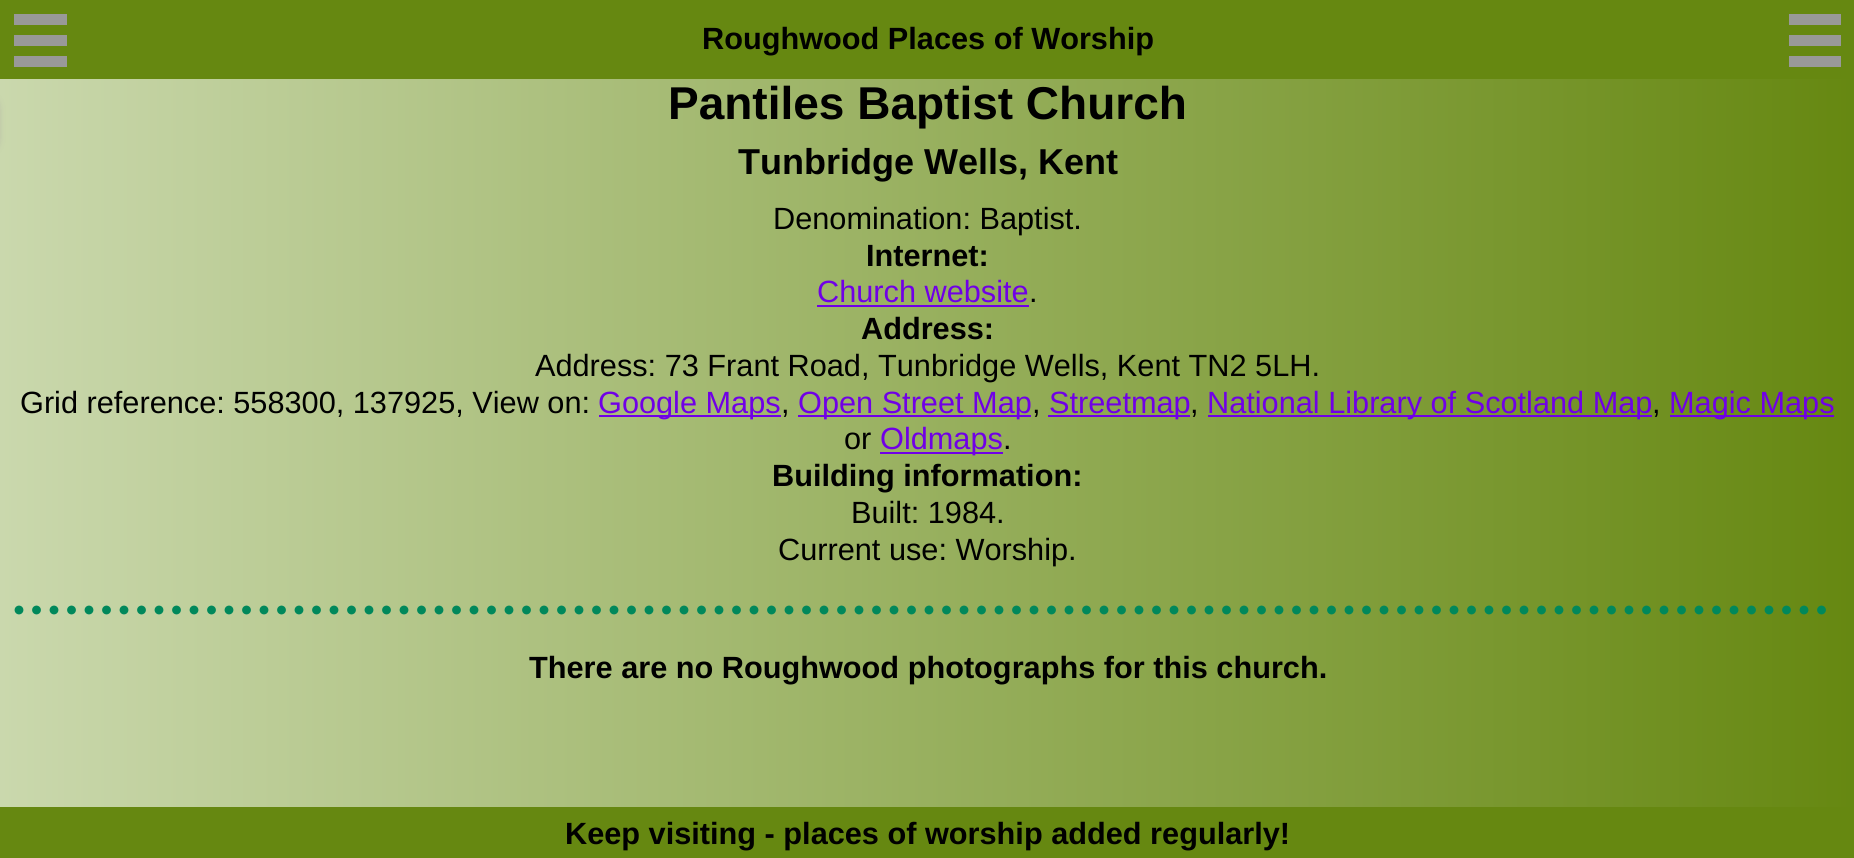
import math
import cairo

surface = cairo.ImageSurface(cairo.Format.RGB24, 1854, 858)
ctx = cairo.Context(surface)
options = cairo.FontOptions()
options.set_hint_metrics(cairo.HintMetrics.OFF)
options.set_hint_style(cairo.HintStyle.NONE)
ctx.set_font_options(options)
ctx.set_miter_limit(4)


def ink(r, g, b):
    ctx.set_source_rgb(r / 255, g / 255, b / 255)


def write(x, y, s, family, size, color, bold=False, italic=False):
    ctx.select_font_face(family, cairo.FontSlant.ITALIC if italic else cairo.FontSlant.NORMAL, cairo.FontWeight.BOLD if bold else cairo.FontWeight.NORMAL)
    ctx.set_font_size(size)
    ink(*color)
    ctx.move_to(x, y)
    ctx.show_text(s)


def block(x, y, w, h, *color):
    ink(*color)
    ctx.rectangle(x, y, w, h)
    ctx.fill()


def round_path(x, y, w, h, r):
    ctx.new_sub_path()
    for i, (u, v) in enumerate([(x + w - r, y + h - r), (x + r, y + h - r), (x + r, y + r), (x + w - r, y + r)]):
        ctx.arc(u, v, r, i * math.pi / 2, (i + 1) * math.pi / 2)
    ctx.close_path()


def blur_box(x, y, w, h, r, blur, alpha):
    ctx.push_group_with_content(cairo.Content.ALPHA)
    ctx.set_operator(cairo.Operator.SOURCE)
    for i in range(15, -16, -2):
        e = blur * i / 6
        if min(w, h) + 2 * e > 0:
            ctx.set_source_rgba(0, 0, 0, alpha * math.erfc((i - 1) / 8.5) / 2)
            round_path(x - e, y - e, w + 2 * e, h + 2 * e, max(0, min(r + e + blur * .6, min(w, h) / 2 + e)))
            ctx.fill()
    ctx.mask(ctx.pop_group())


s1 = dict(family="Liberation Sans", size=30.7, color=(0, 0, 0), bold=True)
s2 = dict(family="Liberation Sans", size=46, color=(0, 0, 0), bold=True)
s3 = dict(family="Liberation Sans", size=36, color=(0, 0, 0), bold=True)
s4 = dict(family="Liberation Sans", size=30.7, color=(0, 0, 0))
s5 = dict(family="Liberation Sans", size=30.7, color=(112, 0, 230))

ink(255, 255, 255)
ctx.paint()
block(0, 0, 1854, 79, 102, 136, 17)
block(14, 35, 53, 11, 153, 153, 153)
block(14, 14, 53, 11, 153, 153, 153)
block(14, 56, 53, 11, 153, 153, 153)
write(702, 49, "Roughwood Places of Worship", **s1)
block(1789, 35, 52, 11, 153, 153, 153)
block(1789, 14, 52, 11, 153, 153, 153)
block(1789, 56, 52, 11, 153, 153, 153)
gradient = cairo.LinearGradient(0, 442, 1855, 442)
gradient.add_color_stop_rgba(0, 0.792, 0.847, 0.678, 1)
gradient.add_color_stop_rgba(1, 0.4, 0.533, 0.067, 1)
ctx.set_source(gradient)
ctx.rectangle(0, 79, 1854, 728)
ctx.fill()
ink(85, 26, 126)
blur_box(-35, 96, 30, 56, 21, 4.5, 0.5)
write(668, 119, "Pantiles Baptist Church", **s2)
write(738, 174, "Tunbridge Wells, Kent", **s3)
ctx.new_path()
ctx.move_to(19, 610)
ctx.line_to(1836, 610)
ink(1, 136, 91)
ctx.set_line_width(8.8)
ctx.set_line_cap(cairo.LineCap.ROUND)
ctx.set_dash([0, 17.5])
ctx.stroke()
write(773, 229, "Denomination: Baptist.", **s4)
write(866, 266, "Internet:", **s1)
write(817, 302, "Church website", **s5)
write(1029, 302, ".", **s4)
block(817, 305, 212, 2, 112, 0, 230)
write(861, 339, "Address:", **s1)
write(535, 376, "Address: 73 Frant Road, Tunbridge Wells, Kent TN2 5LH.", **s4)
write(20, 413, "Grid reference: 558300, 137925, View on:", **s4)
block(599, 415, 182, 2, 112, 0, 230)
write(598, 413, "Google Maps", **s5)
write(781, 413, ",", **s4)
block(798, 415, 233, 2, 112, 0, 230)
write(798, 413, "Open Street Map", **s5)
write(1032, 413, ",", **s4)
block(1048, 415, 142, 2, 112, 0, 230)
write(1049, 413, "Streetmap", **s5)
write(1190, 413, ",", **s4)
block(1208, 415, 444, 2, 112, 0, 230)
write(1207, 413, "National Library of Scotland Map", **s5)
write(1652, 413, ",", **s4)
block(1670, 415, 164, 2, 112, 0, 230)
write(1669, 413, "Magic Maps", **s5)
write(844, 449, "or", **s4)
block(880, 452, 123, 2, 112, 0, 230)
write(880, 449, "Oldmaps", **s5)
write(1003, 449, ".", **s4)
write(772, 486, "Building information:", **s1)
write(851, 523, "Built: 1984.", **s4)
write(778, 560, "Current use: Worship.", **s4)
write(529, 678, "There are no Roughwood photographs for this church.", **s1)
block(0, 807, 1854, 51, 102, 136, 17)
write(565, 844, "Keep visiting - places of worship added regularly!", **s1)
surface.write_to_png("screenshot.png")
